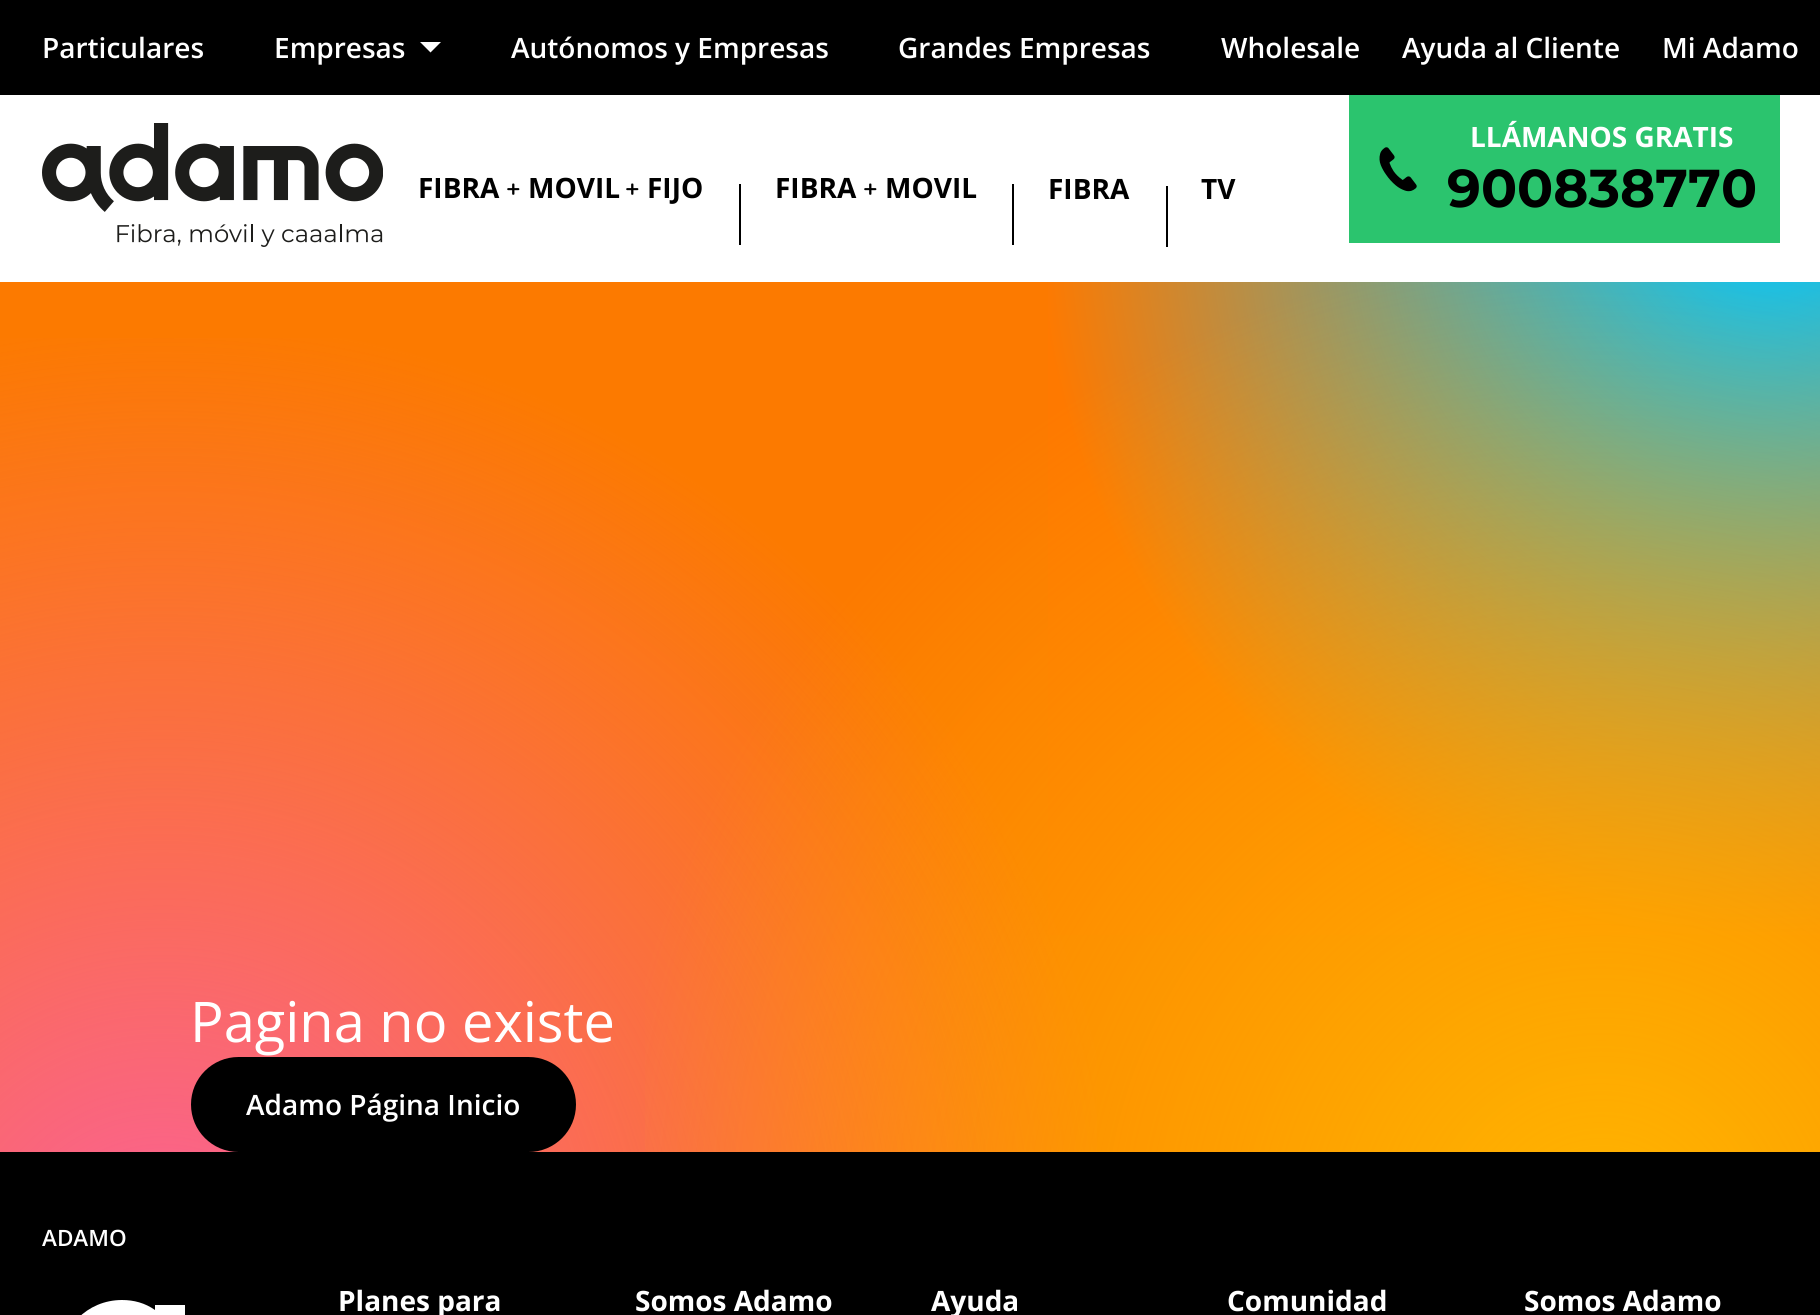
import math
import cairo

surface = cairo.ImageSurface(cairo.Format.RGB24, 1820, 1315)
ctx = cairo.Context(surface)
options = cairo.FontOptions()
options.set_hint_metrics(cairo.HintMetrics.OFF)
options.set_hint_style(cairo.HintStyle.NONE)
ctx.set_font_options(options)
ctx.set_miter_limit(4)


def ink(r, g, b):
    ctx.set_source_rgb(r / 255, g / 255, b / 255)


def write(x, y, s, family, size, color, bold=False, italic=False):
    ctx.select_font_face(family, cairo.FontSlant.ITALIC if italic else cairo.FontSlant.NORMAL, cairo.FontWeight.BOLD if bold else cairo.FontWeight.NORMAL)
    ctx.set_font_size(size)
    ink(*color)
    ctx.move_to(x, y)
    ctx.show_text(s)


def block(x, y, w, h, *color):
    ink(*color)
    ctx.rectangle(x, y, w, h)
    ctx.fill()


def round_path(x, y, w, h, r):
    ctx.new_sub_path()
    for i, (u, v) in enumerate([(x + w - r, y + h - r), (x + r, y + h - r), (x + r, y + r), (x + w - r, y + r)]):
        ctx.arc(u, v, r, i * math.pi / 2, (i + 1) * math.pi / 2)
    ctx.close_path()


def paste(path, x, y, w, h):
    ctx.save()
    ctx.set_source_surface(cairo.ImageSurface.create_from_png(path), x, y)
    ctx.rectangle(x, y, w, h)
    ctx.fill()
    ctx.restore()


s1 = dict(family="Open Sans SemiBold", size=28, color=(255, 255, 255))
s2 = dict(family="Open Sans", size=28, color=(0, 0, 0), bold=True)
s3 = dict(family="WenQuanYi Zen Hei", size=28, color=(0, 0, 0), bold=True)
s4 = dict(family="Open Sans", size=28, color=(255, 255, 255), bold=True)
s5 = dict(family="Montserrat", size=53.25, color=(0, 0, 0), bold=True)
s6 = dict(family="Open Sans", size=56, color=(255, 255, 255))
s7 = dict(family="Open Sans SemiBold", size=22.5, color=(255, 255, 255))

ink(255, 255, 255)
ctx.paint()
block(0, 0, 1820, 95, 0, 0, 0)
write(42, 58, "Particulares", **s1)
write(274, 58, "Empresas", **s1)
ctx.new_path()
ctx.move_to(420, 42)
ctx.line_to(441, 42)
ctx.line_to(430.5, 52.5)
ctx.close_path()
ctx.fill()
write(511, 58, "Autónomos y Empresas", **s1)
write(898, 58, "Grandes Empresas", **s1)
write(1221, 58, "Wholesale", **s1)
write(1402, 58, "Ayuda al Cliente", **s1)
write(1662, 58, "Mi Adamo", **s1)
paste("pic1.png", 42, 123, 341, 124)
write(418, 198, "FIBRA", **s2)
write(500, 198, "﹢", **s3)
write(528, 198, "MOVIL", **s2)
write(619, 198, "﹢", **s3)
write(647, 198, "FIJO", **s2)
block(739, 184, 2, 61, 0, 0, 0)
write(775, 198, "FIBRA", **s2)
write(857, 198, "﹢", **s3)
write(885, 198, "MOVIL", **s2)
block(1012, 184, 2, 61, 0, 0, 0)
write(1048, 199, "FIBRA", **s2)
block(1166, 186, 2, 61, 0, 0, 0)
write(1201, 199, "TV", **s2)
block(1349, 95, 431, 148, 43, 196, 110)
paste("pic2.png", 1379, 147, 38, 45)
write(1470, 147, "LLÁMANOS GRATIS", **s4)
write(1447, 207, "900838770", **s5)
block(0, 282, 1820, 870, 252, 122, 0)
gradient = cairo.RadialGradient(1766, 214, 0, 1766, 214, 728)
gradient.add_color_stop_rgba(0, 0, 0.78, 1, 1)
gradient.add_color_stop_rgba(1, 0.996, 0.475, 0, 1)
ctx.set_source(gradient)
ctx.rectangle(1048, 282, 772, 653)
ctx.fill()
gradient = cairo.RadialGradient(0, 0, 0, 0, 0, 1)
gradient.set_matrix(cairo.Matrix(1 / 962, 0, 0, 1 / 963, -1 * 164 / 962, -1 * 1281 / 963))
gradient.add_color_stop_rgba(0, 0.98, 0.38, 0.6, 1)
gradient.add_color_stop_rgba(1, 0.98, 0.38, 0.6, 0)
ctx.set_source(gradient)
ctx.rectangle(0, 338, 1097, 814)
ctx.fill()
gradient = cairo.RadialGradient(1601, 1241, 0, 1601, 1241, 993)
gradient.add_color_stop_rgba(0, 1, 0.71, 0, 1)
gradient.add_color_stop_rgba(1, 1, 0.71, 0, 0)
ctx.set_source(gradient)
ctx.rectangle(645, 282, 1175, 870)
ctx.fill()
write(190, 1042, "Pagina no existe", **s6)
ink(0, 0, 0)
round_path(198, 1064, 371, 81, 40.5)
ctx.fill_preserve()
ctx.set_line_width(14)
ctx.stroke()
write(246, 1115, "Adamo Página Inicio", **s1)
block(0, 1152, 1820, 163, 0, 0, 0)
write(42, 1246, "ADAMO", **s7)
ctx.set_fill_rule(cairo.FillRule.EVEN_ODD)
ctx.new_path()
ctx.move_to(164, 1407)
ctx.curve_to(153, 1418, 137, 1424, 122, 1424)
ctx.curve_to(87, 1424, 60, 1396, 60, 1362)
ctx.curve_to(60, 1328, 87, 1300, 122, 1300)
ctx.curve_to(134, 1300, 145, 1303, 155, 1310)
ctx.line_to(155, 1305)
ctx.line_to(185, 1305)
ctx.line_to(185, 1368)
ctx.curve_to(185, 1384, 196, 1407, 214, 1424)
ctx.line_to(194, 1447)
ctx.curve_to(180, 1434, 172, 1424, 164, 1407)
ctx.close_path()
ctx.move_to(153, 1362)
ctx.curve_to(153, 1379, 139, 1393, 122, 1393)
ctx.curve_to(104, 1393, 90, 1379, 90, 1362)
ctx.curve_to(90, 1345, 104, 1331, 122, 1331)
ctx.curve_to(139, 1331, 153, 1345, 153, 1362)
ctx.close_path()
ctx.fill()
write(338, 1311, "Planes para", **s4)
write(635, 1311, "Somos Adamo", **s4)
write(931, 1311, "Ayuda", **s4)
write(1227, 1311, "Comunidad", **s4)
write(1524, 1311, "Somos Adamo", **s4)
surface.write_to_png("screenshot.png")
